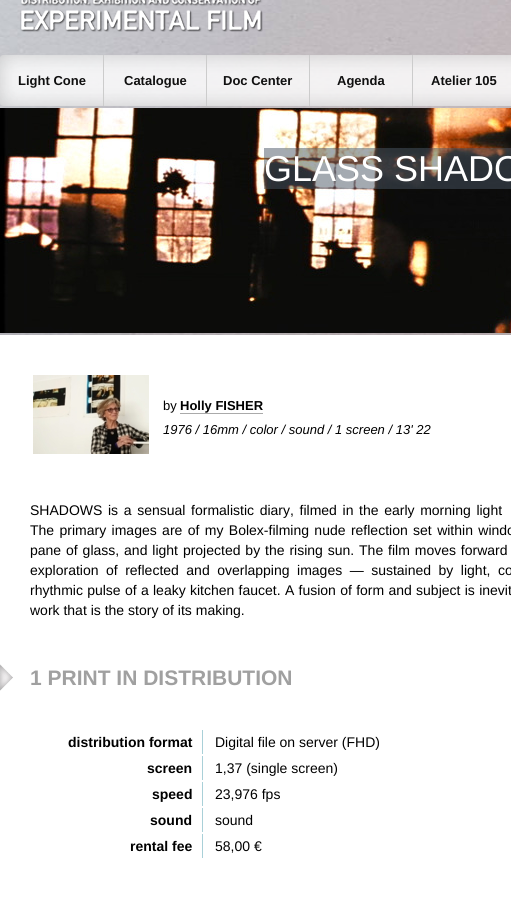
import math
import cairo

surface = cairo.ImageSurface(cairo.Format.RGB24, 511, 912)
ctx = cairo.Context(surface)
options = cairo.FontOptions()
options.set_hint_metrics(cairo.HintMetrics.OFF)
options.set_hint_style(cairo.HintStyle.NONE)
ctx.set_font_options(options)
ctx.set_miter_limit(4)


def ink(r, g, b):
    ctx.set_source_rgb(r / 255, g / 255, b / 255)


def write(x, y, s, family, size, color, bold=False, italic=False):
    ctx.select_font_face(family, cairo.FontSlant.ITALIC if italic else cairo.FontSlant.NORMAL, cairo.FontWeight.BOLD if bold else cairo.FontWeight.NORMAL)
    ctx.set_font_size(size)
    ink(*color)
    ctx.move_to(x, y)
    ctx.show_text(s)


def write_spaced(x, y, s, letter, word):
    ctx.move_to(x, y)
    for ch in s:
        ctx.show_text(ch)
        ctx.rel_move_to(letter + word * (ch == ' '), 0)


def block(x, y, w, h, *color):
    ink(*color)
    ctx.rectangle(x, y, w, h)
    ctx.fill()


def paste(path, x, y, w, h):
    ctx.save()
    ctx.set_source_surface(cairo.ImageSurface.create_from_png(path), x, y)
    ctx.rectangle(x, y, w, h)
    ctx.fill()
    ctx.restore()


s1 = dict(family="Liberation Sans", size=13, color=(16, 16, 16), bold=True)
s2 = dict(family="Liberation Sans", size=36, color=(255, 255, 255))
s3 = dict(family="Liberation Sans", size=13, color=(0, 0, 0))
s4 = dict(family="Liberation Sans", size=13, color=(0, 0, 0), bold=True)
s5 = dict(family="Liberation Sans", size=13, color=(0, 0, 0), italic=True)
s6 = dict(family="Liberation Sans", size=14, color=(0, 0, 0))
s7 = dict(family="Liberation Sans", size=21, color=(160, 160, 160), bold=True)
s8 = dict(family="Liberation Sans", size=14, color=(0, 0, 0), bold=True)

ink(255, 255, 255)
ctx.paint()
paste("pic1.png", 0, 0, 511, 335)
paste("pic2.png", 20, 0, 243, 32)
paste("pic3.png", 0, 55, 103, 51)
write(18, 85, "Light Cone", **s1)
paste("pic4.png", 104, 55, 102, 51)
block(103, 55, 1, 51, 204, 204, 204)
write(124, 85, "Catalogue", **s1)
paste("pic5.png", 207, 55, 102, 51)
block(206, 55, 1, 51, 204, 204, 204)
write(223, 85, "Doc Center", **s1)
paste("pic6.png", 310, 55, 102, 51)
block(309, 55, 1, 51, 204, 204, 204)
write(337, 85, "Agenda", **s1)
paste("pic7.png", 413, 55, 98, 51)
block(412, 55, 1, 51, 204, 204, 204)
write(431, 85, "Atelier 105", **s1)
paste("pic8.png", 0, 108, 511, 225)
ctx.set_source_rgba(0.29, 0.337, 0.392, 0.5)
ctx.rectangle(264, 148, 247, 41)
ctx.fill()
write(264, 181, "GLASS SHADO", **s2)
paste("pic9.png", 33, 375, 116, 79)
write(163, 410, "by", **s3)
write(180, 410, "Holly FISHER", **s4)
block(180, 413, 83, 1, 170, 170, 170)
write(163, 434, "1976 / 16mm / color / sound / 1 screen / 13' 22", **s5)
ctx.select_font_face("Liberation Sans")
ctx.set_font_size(14)
write_spaced(30, 515, "SHADOWS is a sensual formalistic diary, filmed in the early morning light", 0, 1.75)
write_spaced(30, 535, "The primary images are of my Bolex-filming nude reflection set within windo", 0, 1.5)
write_spaced(30, 555, "pane of glass, and light projected by the rising sun. The film moves forward", 0, 1)
write_spaced(30, 575, "exploration of reflected and overlapping images — sustained by light, co", 0, 3.6)
write_spaced(30, 595, "rhythmic pulse of a leaky kitchen faucet. A fusion of form and subject is inevit", 0, 0.4)
write(30, 615, "work that is the story of its making.", **s6)
paste("pic10.png", 0, 664, 13, 27)
write(30, 685, "1 PRINT IN DISTRIBUTION", **s7)
block(202, 730, 1, 24, 169, 208, 216)
write(68, 747, "distribution format", **s8)
write(215, 747, "Digital file on server (FHD)", **s6)
block(202, 756, 1, 24, 169, 208, 216)
write(147, 773, "screen", **s8)
write(215, 773, "1,37 (single screen)", **s6)
block(202, 782, 1, 24, 169, 208, 216)
write(152, 799, "speed", **s8)
write(215, 799, "23,976 fps", **s6)
block(202, 808, 1, 24, 169, 208, 216)
write(150, 825, "sound", **s8)
write(215, 825, "sound", **s6)
block(202, 834, 1, 24, 169, 208, 216)
write(130, 851, "rental fee", **s8)
write(215, 851, "58,00 €", **s6)
surface.write_to_png("screenshot.png")
